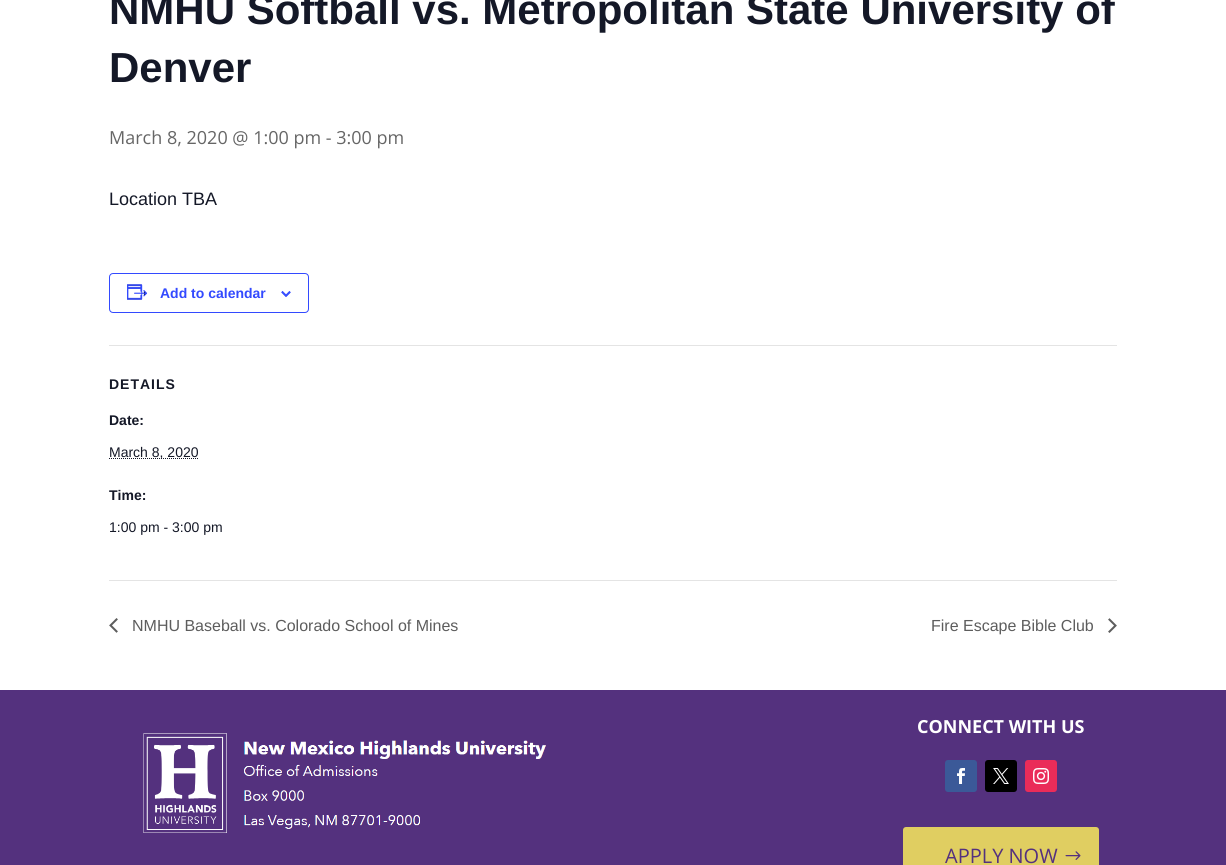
import math
import cairo

surface = cairo.ImageSurface(cairo.Format.RGB24, 1226, 865)
ctx = cairo.Context(surface)
options = cairo.FontOptions()
options.set_hint_metrics(cairo.HintMetrics.OFF)
options.set_hint_style(cairo.HintStyle.NONE)
ctx.set_font_options(options)
ctx.set_miter_limit(4)


def ink(r, g, b):
    ctx.set_source_rgb(r / 255, g / 255, b / 255)


def write(x, y, s, family, size, color, bold=False, italic=False):
    ctx.select_font_face(family, cairo.FontSlant.ITALIC if italic else cairo.FontSlant.NORMAL, cairo.FontWeight.BOLD if bold else cairo.FontWeight.NORMAL)
    ctx.set_font_size(size)
    ink(*color)
    ctx.move_to(x, y)
    ctx.show_text(s)


def write_spaced(x, y, s, letter, word):
    ctx.move_to(x, y)
    for ch in s:
        ctx.show_text(ch)
        ctx.rel_move_to(letter + word * (ch == ' '), 0)


def block(x, y, w, h, *color):
    ink(*color)
    ctx.rectangle(x, y, w, h)
    ctx.fill()


def round_path(x, y, w, h, r):
    ctx.new_sub_path()
    for i, (u, v) in enumerate([(x + w - r, y + h - r), (x + r, y + h - r), (x + r, y + r), (x + w - r, y + r)]):
        ctx.arc(u, v, r, i * math.pi / 2, (i + 1) * math.pi / 2)
    ctx.close_path()


def paste(path, x, y, w, h):
    ctx.save()
    ctx.set_source_surface(cairo.ImageSurface.create_from_png(path), x, y)
    ctx.rectangle(x, y, w, h)
    ctx.fill()
    ctx.restore()


s1 = dict(family="Liberation Sans", size=42, color=(20, 24, 39), bold=True)
s2 = dict(family="Open Sans", size=18, color=(102, 102, 102))
s3 = dict(family="Liberation Sans", size=18, color=(20, 24, 39))
s4 = dict(family="Liberation Sans", size=14, color=(51, 74, 255), bold=True)
s5 = dict(family="Liberation Sans", size=14, color=(20, 24, 39), bold=True)
s6 = dict(family="Liberation Sans", size=14, color=(20, 24, 39))
s7 = dict(family="Liberation Sans", size=16, color=(93, 93, 93))
s8 = dict(family="Open Sans", size=18, color=(255, 255, 255), bold=True)
s9 = dict(family="Open Sans", size=20, color=(84, 49, 126))

ink(255, 255, 255)
ctx.paint()
write(109, 24, "NMHU Softball vs. Metropolitan State University of", **s1)
write(109, 82, "Denver", **s1)
write(109, 144, "March 8, 2020 @ 1:00 pm - 3:00 pm", **s2)
write(109, 205, "Location TBA", **s3)
round_path(109.5, 273.5, 199, 39, 3.5)
ink(51, 74, 255)
ctx.set_line_width(1)
ctx.stroke()
paste("pic1.png", 127, 284, 21, 16)
write(160, 298, "Add to calendar", **s4)
paste("pic2.png", 281, 291, 10, 6)
block(109, 345, 1008, 1, 228, 228, 228)
ink(20, 24, 39)
write_spaced(109, 389, "DETAILS", 1, 0)
write(109, 425, "Date:", **s5)
ctx.new_path()
ctx.move_to(109, 458.5)
ctx.line_to(198.5, 458.5)
ctx.set_dash([1, 1])
ctx.stroke()
write(109, 457, "March 8, 2020", **s6)
write(109, 500, "Time:", **s5)
write(109, 532, "1:00 pm - 3:00 pm", **s6)
block(109, 580, 1008, 1, 228, 228, 228)
paste("pic3.png", 109, 618, 9, 15)
write(132, 631, "NMHU Baseball vs. Colorado School of Mines", **s7)
write(931, 631, "Fire Escape Bible Club", **s7)
paste("pic4.png", 1108, 618, 9, 15)
block(0, 690, 1226, 175, 84, 49, 126)
paste("pic5.png", 143, 733, 403, 100)
write(917, 733, "CONNECT WITH US", **s8)
ink(59, 89, 152)
round_path(945, 760, 32, 32, 3)
ctx.fill()
paste("pic6.png", 957, 768, 8, 16)
ink(0, 0, 0)
round_path(985, 760, 32, 32, 3)
ctx.fill()
paste("pic7.png", 993, 768, 16, 16)
ink(234, 44, 89)
round_path(1025, 760, 32, 32, 3)
ctx.fill()
paste("pic8.png", 1033, 768, 16, 16)
ink(224, 206, 97)
round_path(903, 827, 196, 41, 3)
ctx.fill()
write(945, 863, "APPLY NOW", **s9)
paste("pic9.png", 1065, 851, 16, 9)
surface.write_to_png("screenshot.png")
